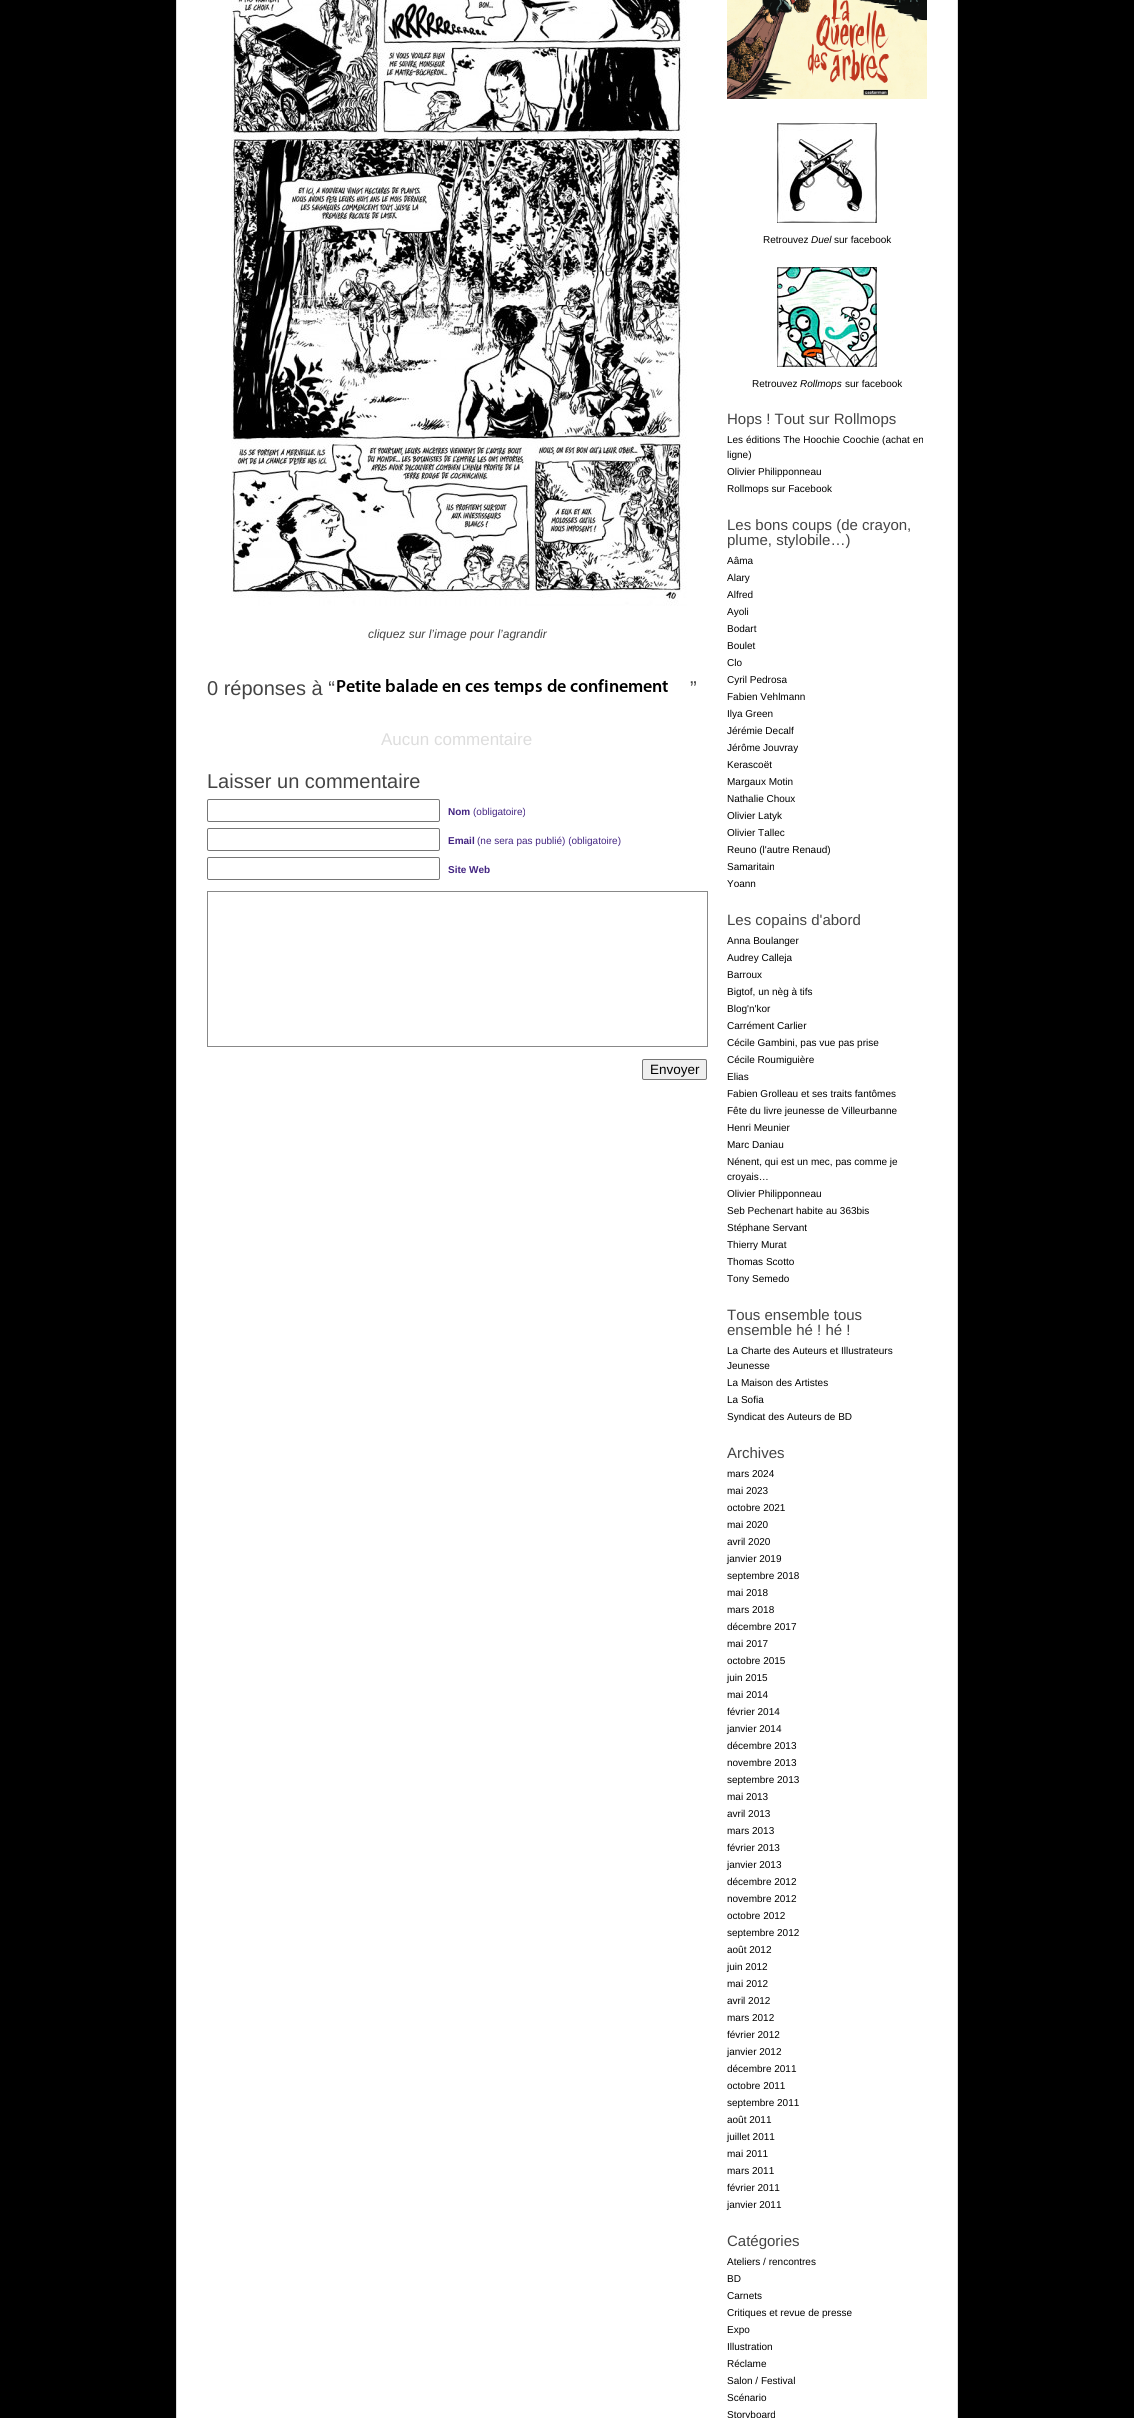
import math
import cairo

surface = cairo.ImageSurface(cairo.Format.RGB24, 1134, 2418)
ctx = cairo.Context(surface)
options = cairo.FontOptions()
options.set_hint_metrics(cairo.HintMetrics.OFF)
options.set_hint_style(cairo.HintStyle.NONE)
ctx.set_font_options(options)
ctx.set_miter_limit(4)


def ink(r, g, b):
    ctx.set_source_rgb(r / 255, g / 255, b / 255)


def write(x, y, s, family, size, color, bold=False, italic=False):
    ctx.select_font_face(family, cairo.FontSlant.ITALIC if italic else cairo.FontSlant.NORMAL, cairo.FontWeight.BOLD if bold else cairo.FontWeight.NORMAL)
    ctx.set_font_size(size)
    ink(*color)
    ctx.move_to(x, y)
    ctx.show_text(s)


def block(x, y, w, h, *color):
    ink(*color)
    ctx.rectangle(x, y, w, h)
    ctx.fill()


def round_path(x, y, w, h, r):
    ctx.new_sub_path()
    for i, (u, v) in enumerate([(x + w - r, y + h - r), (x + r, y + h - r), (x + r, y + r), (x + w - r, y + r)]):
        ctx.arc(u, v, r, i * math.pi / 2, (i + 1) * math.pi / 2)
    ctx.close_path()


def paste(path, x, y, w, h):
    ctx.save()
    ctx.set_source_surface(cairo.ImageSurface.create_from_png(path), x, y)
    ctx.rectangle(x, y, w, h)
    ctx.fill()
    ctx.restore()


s1 = dict(family="Liberation Sans", size=12, color=(68, 68, 68), italic=True)
s2 = dict(family="Liberation Sans", size=20, color=(68, 68, 68))
s3 = dict(family="Liberation Sans", size=17, color=(221, 221, 221))
s4 = dict(family="Liberation Sans", size=10, color=(68, 38, 130), bold=True)
s5 = dict(family="Liberation Sans", size=10, color=(68, 38, 130))
s6 = dict(family="Liberation Sans", size=13.5, color=(0, 0, 0))
s7 = dict(family="Liberation Sans", size=10, color=(0, 0, 0))
s8 = dict(family="Liberation Sans", size=10, color=(0, 0, 0), italic=True)
s9 = dict(family="Liberation Sans", size=15, color=(68, 68, 68))

ink(0, 0, 0)
ctx.paint()
block(177, 0, 780, 2418, 255, 255, 255)
ink(221, 221, 221)
ctx.set_fill_rule(cairo.FillRule.EVEN_ODD)
ctx.new_path()
ctx.move_to(176, -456)
ctx.line_to(958, -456)
ctx.line_to(958, 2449)
ctx.curve_to(958, 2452, 956, 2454, 953, 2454)
ctx.line_to(181, 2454)
ctx.curve_to(178, 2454, 176, 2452, 176, 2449)
ctx.close_path()
ctx.move_to(177, -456)
ctx.line_to(957, -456)
ctx.line_to(957, 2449)
ctx.curve_to(957, 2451, 955, 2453, 953, 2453)
ctx.line_to(181, 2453)
ctx.curve_to(179, 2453, 177, 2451, 177, 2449)
ctx.close_path()
ctx.fill()
paste("pic1.png", 231, 0, 456, 606)
write(368, 638, "cliquez sur l’image pour l’agrandir", **s1)
write(207, 695, "0 réponses à “", **s2)
paste("pic2.png", 337, 679, 331, 16)
write(690, 695, "”", **s2)
write(381, 745, "Aucun commentaire", **s3)
write(207, 788, "Laisser un commentaire", **s2)
round_path(207.5, 799.5, 232, 22, 1.5)
ink(118, 118, 118)
ctx.set_line_width(1)
ctx.stroke()
write(448, 815, "Nom", **s4)
write(473, 815, "(obligatoire)", **s5)
round_path(207.5, 828.5, 232, 22, 1.5)
ink(118, 118, 118)
ctx.stroke()
write(448, 844, "Email", **s4)
write(477, 844, "(ne sera pas publié) (obligatoire)", **s5)
round_path(207.5, 857.5, 232, 22, 1.5)
ink(118, 118, 118)
ctx.stroke()
write(448, 873, "Site Web", **s4)
ctx.rectangle(207.5, 891.5, 500, 155)
ink(136, 136, 136)
ctx.stroke()
ink(239, 239, 239)
round_path(642.5, 1059.5, 64, 20, 1.5)
ctx.fill_preserve()
ink(118, 118, 118)
ctx.stroke()
write(650, 1074, "Envoyer", **s6)
paste("pic3.png", 727, 0, 200, 99)
paste("pic4.png", 777, 123, 100, 100)
write(763, 243, "Retrouvez", **s7)
write(811, 243, "Duel", **s8)
write(834, 243, "sur facebook", **s7)
paste("pic5.png", 777, 267, 100, 100)
write(752, 387, "Retrouvez", **s7)
write(800, 387, "Rollmops", **s8)
write(845, 387, "sur facebook", **s7)
write(727, 424, "Hops ! Tout sur Rollmops", **s9)
write(727, 443, "Les éditions The Hoochie Coochie (achat en", **s7)
write(727, 458, "ligne)", **s7)
write(727, 475, "Olivier Philipponneau", **s7)
write(727, 492, "Rollmops sur Facebook", **s7)
write(727, 530, "Les bons coups (de crayon,", **s9)
write(727, 545, "plume, stylobile…)", **s9)
write(727, 564, "Aâma", **s7)
write(727, 581, "Alary", **s7)
write(727, 598, "Alfred", **s7)
write(727, 615, "Ayoli", **s7)
write(727, 632, "Bodart", **s7)
write(727, 649, "Boulet", **s7)
write(727, 666, "Clo", **s7)
write(727, 683, "Cyril Pedrosa", **s7)
write(727, 700, "Fabien Vehlmann", **s7)
write(727, 717, "Ilya Green", **s7)
write(727, 734, "Jérémie Decalf", **s7)
write(727, 751, "Jérôme Jouvray", **s7)
write(727, 768, "Kerascoët", **s7)
write(727, 785, "Margaux Motin", **s7)
write(727, 802, "Nathalie Choux", **s7)
write(727, 819, "Olivier Latyk", **s7)
write(727, 836, "Olivier Tallec", **s7)
write(727, 853, "Reuno (l'autre Renaud)", **s7)
write(727, 870, "Samaritain", **s7)
write(727, 887, "Yoann", **s7)
write(727, 925, "Les copains d'abord", **s9)
write(727, 944, "Anna Boulanger", **s7)
write(727, 961, "Audrey Calleja", **s7)
write(727, 978, "Barroux", **s7)
write(727, 995, "Bigtof, un nèg à tifs", **s7)
write(727, 1012, "Blog'n'kor", **s7)
write(727, 1029, "Carrément Carlier", **s7)
write(727, 1046, "Cécile Gambini, pas vue pas prise", **s7)
write(727, 1063, "Cécile Roumiguière", **s7)
write(727, 1080, "Elias", **s7)
write(727, 1097, "Fabien Grolleau et ses traits fantômes", **s7)
write(727, 1114, "Fête du livre jeunesse de Villeurbanne", **s7)
write(727, 1131, "Henri Meunier", **s7)
write(727, 1148, "Marc Daniau", **s7)
write(727, 1165, "Nénent, qui est un mec, pas comme je", **s7)
write(727, 1180, "croyais…", **s7)
write(727, 1197, "Olivier Philipponneau", **s7)
write(727, 1214, "Seb Pechenart habite au 363bis", **s7)
write(727, 1231, "Stéphane Servant", **s7)
write(727, 1248, "Thierry Murat", **s7)
write(727, 1265, "Thomas Scotto", **s7)
write(727, 1282, "Tony Semedo", **s7)
write(727, 1320, "Tous ensemble tous", **s9)
write(727, 1335, "ensemble hé ! hé !", **s9)
write(727, 1354, "La Charte des Auteurs et Illustrateurs", **s7)
write(727, 1369, "Jeunesse", **s7)
write(727, 1386, "La Maison des Artistes", **s7)
write(727, 1403, "La Sofia", **s7)
write(727, 1420, "Syndicat des Auteurs de BD", **s7)
write(727, 1458, "Archives", **s9)
write(727, 1477, "mars 2024", **s7)
write(727, 1494, "mai 2023", **s7)
write(727, 1511, "octobre 2021", **s7)
write(727, 1528, "mai 2020", **s7)
write(727, 1545, "avril 2020", **s7)
write(727, 1562, "janvier 2019", **s7)
write(727, 1579, "septembre 2018", **s7)
write(727, 1596, "mai 2018", **s7)
write(727, 1613, "mars 2018", **s7)
write(727, 1630, "décembre 2017", **s7)
write(727, 1647, "mai 2017", **s7)
write(727, 1664, "octobre 2015", **s7)
write(727, 1681, "juin 2015", **s7)
write(727, 1698, "mai 2014", **s7)
write(727, 1715, "février 2014", **s7)
write(727, 1732, "janvier 2014", **s7)
write(727, 1749, "décembre 2013", **s7)
write(727, 1766, "novembre 2013", **s7)
write(727, 1783, "septembre 2013", **s7)
write(727, 1800, "mai 2013", **s7)
write(727, 1817, "avril 2013", **s7)
write(727, 1834, "mars 2013", **s7)
write(727, 1851, "février 2013", **s7)
write(727, 1868, "janvier 2013", **s7)
write(727, 1885, "décembre 2012", **s7)
write(727, 1902, "novembre 2012", **s7)
write(727, 1919, "octobre 2012", **s7)
write(727, 1936, "septembre 2012", **s7)
write(727, 1953, "août 2012", **s7)
write(727, 1970, "juin 2012", **s7)
write(727, 1987, "mai 2012", **s7)
write(727, 2004, "avril 2012", **s7)
write(727, 2021, "mars 2012", **s7)
write(727, 2038, "février 2012", **s7)
write(727, 2055, "janvier 2012", **s7)
write(727, 2072, "décembre 2011", **s7)
write(727, 2089, "octobre 2011", **s7)
write(727, 2106, "septembre 2011", **s7)
write(727, 2123, "août 2011", **s7)
write(727, 2140, "juillet 2011", **s7)
write(727, 2157, "mai 2011", **s7)
write(727, 2174, "mars 2011", **s7)
write(727, 2191, "février 2011", **s7)
write(727, 2208, "janvier 2011", **s7)
write(727, 2246, "Catégories", **s9)
write(727, 2265, "Ateliers / rencontres", **s7)
write(727, 2282, "BD", **s7)
write(727, 2299, "Carnets", **s7)
write(727, 2316, "Critiques et revue de presse", **s7)
write(727, 2333, "Expo", **s7)
write(727, 2350, "Illustration", **s7)
write(727, 2367, "Réclame", **s7)
write(727, 2384, "Salon / Festival", **s7)
write(727, 2401, "Scénario", **s7)
write(727, 2418, "Storyboard", **s7)
surface.write_to_png("screenshot.png")
